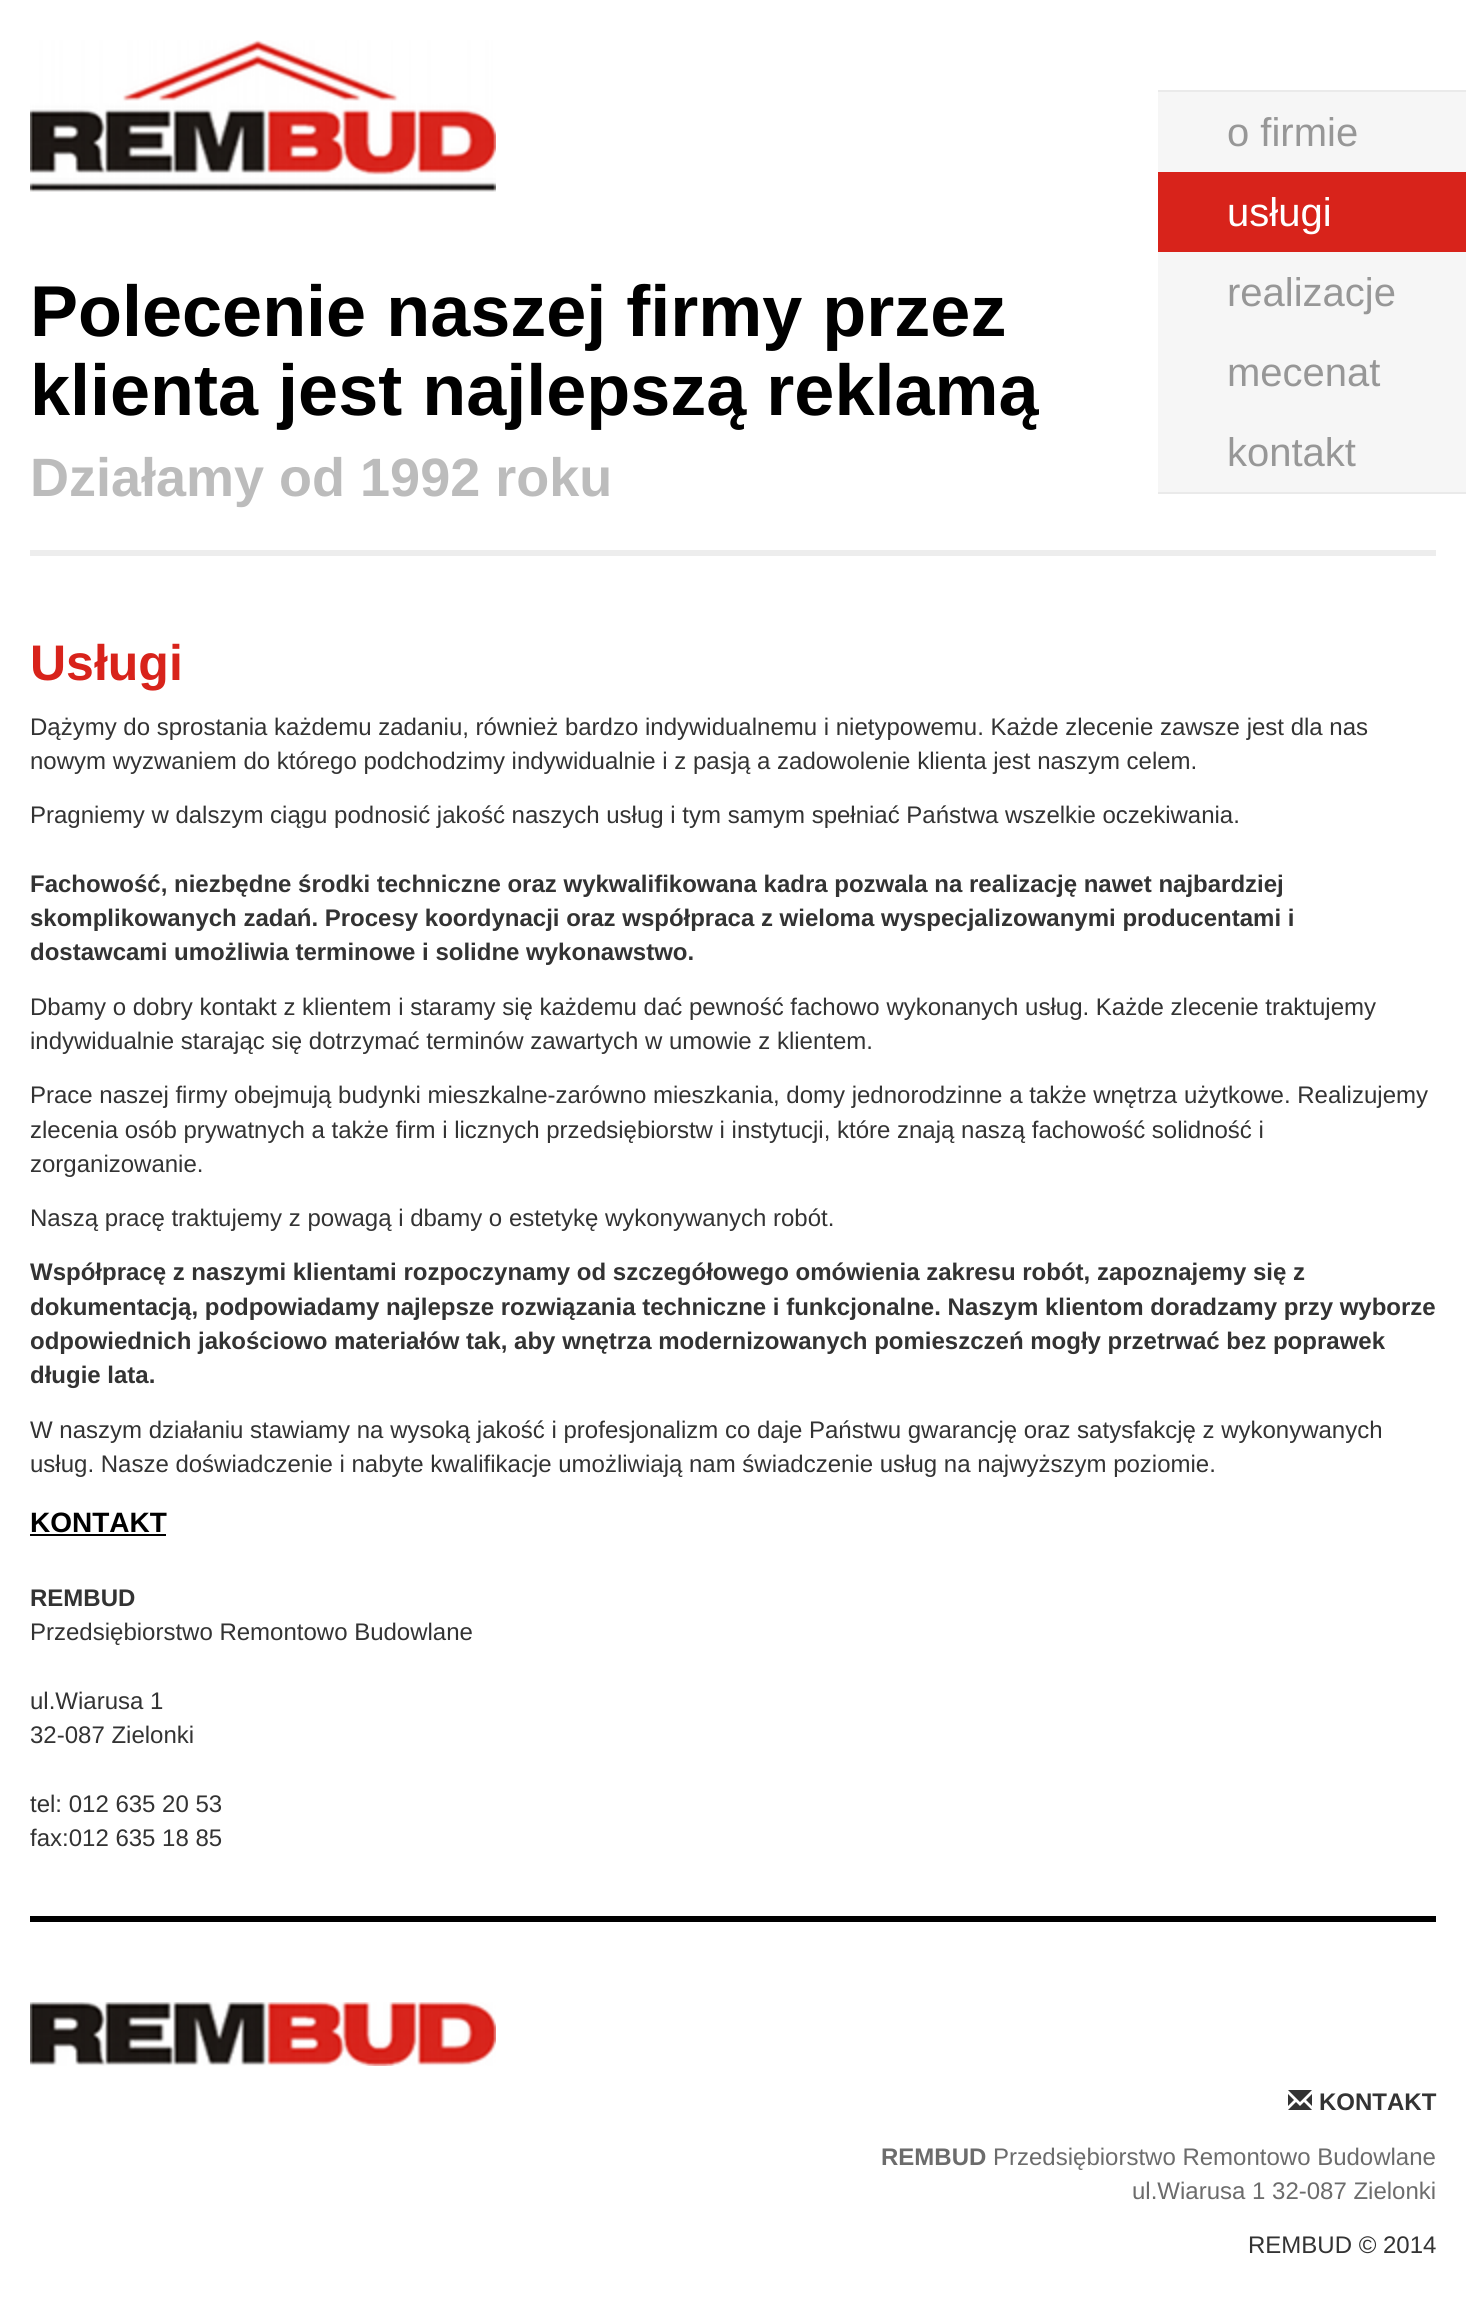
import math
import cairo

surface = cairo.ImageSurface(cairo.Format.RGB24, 1466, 2309)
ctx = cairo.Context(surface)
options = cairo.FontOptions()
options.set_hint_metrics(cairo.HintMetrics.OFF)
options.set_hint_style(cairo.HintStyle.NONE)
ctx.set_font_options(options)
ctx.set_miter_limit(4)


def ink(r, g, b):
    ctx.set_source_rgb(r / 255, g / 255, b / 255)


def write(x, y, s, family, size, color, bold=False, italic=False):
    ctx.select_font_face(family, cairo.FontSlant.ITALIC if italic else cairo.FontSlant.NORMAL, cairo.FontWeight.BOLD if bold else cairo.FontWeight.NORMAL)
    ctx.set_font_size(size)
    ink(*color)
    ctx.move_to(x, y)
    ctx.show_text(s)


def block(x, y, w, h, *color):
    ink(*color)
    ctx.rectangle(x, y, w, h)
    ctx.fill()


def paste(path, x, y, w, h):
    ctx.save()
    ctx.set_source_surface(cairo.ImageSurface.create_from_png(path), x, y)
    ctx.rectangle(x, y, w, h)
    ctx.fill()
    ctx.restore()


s1 = dict(family="Liberation Sans", size=40, color=(151, 151, 151))
s2 = dict(family="Liberation Sans", size=40, color=(255, 255, 255))
s3 = dict(family="Liberation Sans", size=72, color=(0, 0, 0), bold=True)
s4 = dict(family="Liberation Sans", size=54, color=(188, 188, 188), bold=True)
s5 = dict(family="Liberation Sans", size=50, color=(216, 35, 27), bold=True)
s6 = dict(family="Liberation Sans", size=24, color=(51, 51, 51))
s7 = dict(family="Liberation Sans", size=24, color=(51, 51, 51), bold=True)
s8 = dict(family="Liberation Sans", size=28, color=(0, 0, 0), bold=True)
s9 = dict(family="Liberation Sans", size=24, color=(108, 108, 108), bold=True)
s10 = dict(family="Liberation Sans", size=24, color=(108, 108, 108))

ink(255, 255, 255)
ctx.paint()
paste("pic1.png", 30, 40, 466, 152)
block(1158, 92, 308, 400, 246, 246, 246)
block(1158, 90, 308, 2, 234, 234, 234)
block(1158, 492, 308, 2, 234, 234, 234)
write(1227, 146, "o firmie", **s1)
block(1158, 172, 308, 80, 216, 35, 27)
write(1227, 226, "usługi", **s2)
write(1227, 306, "realizacje", **s1)
write(1227, 386, "mecenat", **s1)
write(1227, 466, "kontakt", **s1)
write(30, 336, "Polecenie naszej firmy przez", **s3)
write(30, 415, "klienta jest najlepszą reklamą", **s3)
write(30, 496, "Działamy od 1992 roku", **s4)
block(30, 550, 1406, 6, 237, 237, 237)
write(30, 680, "Usługi", **s5)
write(30, 735, "Dążymy do sprostania każdemu zadaniu, również bardzo indywidualnemu i nietypowemu. Każde zlecenie zawsze jest dla nas", **s6)
write(30, 769, "nowym wyzwaniem do którego podchodzimy indywidualnie i z pasją a zadowolenie klienta jest naszym celem.", **s6)
write(30, 823, "Pragniemy w dalszym ciągu podnosić jakość naszych usług i tym samym spełniać Państwa wszelkie oczekiwania.", **s6)
write(30, 892, "Fachowość, niezbędne środki techniczne oraz wykwalifikowana kadra pozwala na realizację nawet najbardziej", **s7)
write(30, 926, "skomplikowanych zadań. Procesy koordynacji oraz współpraca z wieloma wyspecjalizowanymi producentami i", **s7)
write(30, 960, "dostawcami umożliwia terminowe i solidne wykonawstwo.", **s7)
write(30, 1015, "Dbamy o dobry kontakt z klientem i staramy się każdemu dać pewność fachowo wykonanych usług. Każde zlecenie traktujemy", **s6)
write(30, 1049, "indywidualnie starając się dotrzymać terminów zawartych w umowie z klientem.", **s6)
write(30, 1103, "Prace naszej firmy obejmują budynki mieszkalne-zarówno mieszkania, domy jednorodzinne a także wnętrza użytkowe. Realizujemy", **s6)
write(30, 1138, "zlecenia osób prywatnych a także firm i licznych przedsiębiorstw i instytucji, które znają naszą fachowość solidność i", **s6)
write(30, 1172, "zorganizowanie.", **s6)
write(30, 1226, "Naszą pracę traktujemy z powagą i dbamy o estetykę wykonywanych robót.", **s6)
write(30, 1280, "Współpracę z naszymi klientami rozpoczynamy od szczegółowego omówienia zakresu robót, zapoznajemy się z", **s7)
write(30, 1315, "dokumentacją, podpowiadamy najlepsze rozwiązania techniczne i funkcjonalne. Naszym klientom doradzamy przy wyborze", **s7)
write(30, 1349, "odpowiednich jakościowo materiałów tak, aby wnętrza modernizowanych pomieszczeń mogły przetrwać bez poprawek", **s7)
write(30, 1383, "długie lata.", **s7)
write(30, 1438, "W naszym działaniu stawiamy na wysoką jakość i profesjonalizm co daje Państwu gwarancję oraz satysfakcję z wykonywanych", **s6)
write(30, 1472, "usług. Nasze doświadczenie i nabyte kwalifikacje umożliwiają nam świadczenie usług na najwyższym poziomie.", **s6)
write(30, 1532, "KONTAKT", **s8)
block(30, 1534, 136, 2, 0, 0, 0)
write(30, 1606, "REMBUD", **s7)
write(30, 1640, "Przedsiębiorstwo Remontowo Budowlane", **s6)
write(30, 1709, "ul.Wiarusa 1", **s6)
write(30, 1743, "32-087 Zielonki", **s6)
write(30, 1812, "tel: 012 635 20 53", **s6)
write(30, 1846, "fax:012 635 18 85", **s6)
block(30, 1916, 1406, 6, 0, 0, 0)
paste("pic2.png", 30, 2002, 466, 64)
paste("pic3.png", 1288, 2090, 24, 20)
write(1319, 2110, "KONTAKT", **s7)
write(881, 2165, "REMBUD", **s9)
write(993, 2165, "Przedsiębiorstwo Remontowo Budowlane", **s10)
write(1132, 2199, "ul.Wiarusa 1 32-087 Zielonki", **s10)
write(1248, 2253, "REMBUD © 2014", **s6)
surface.write_to_png("screenshot.png")
